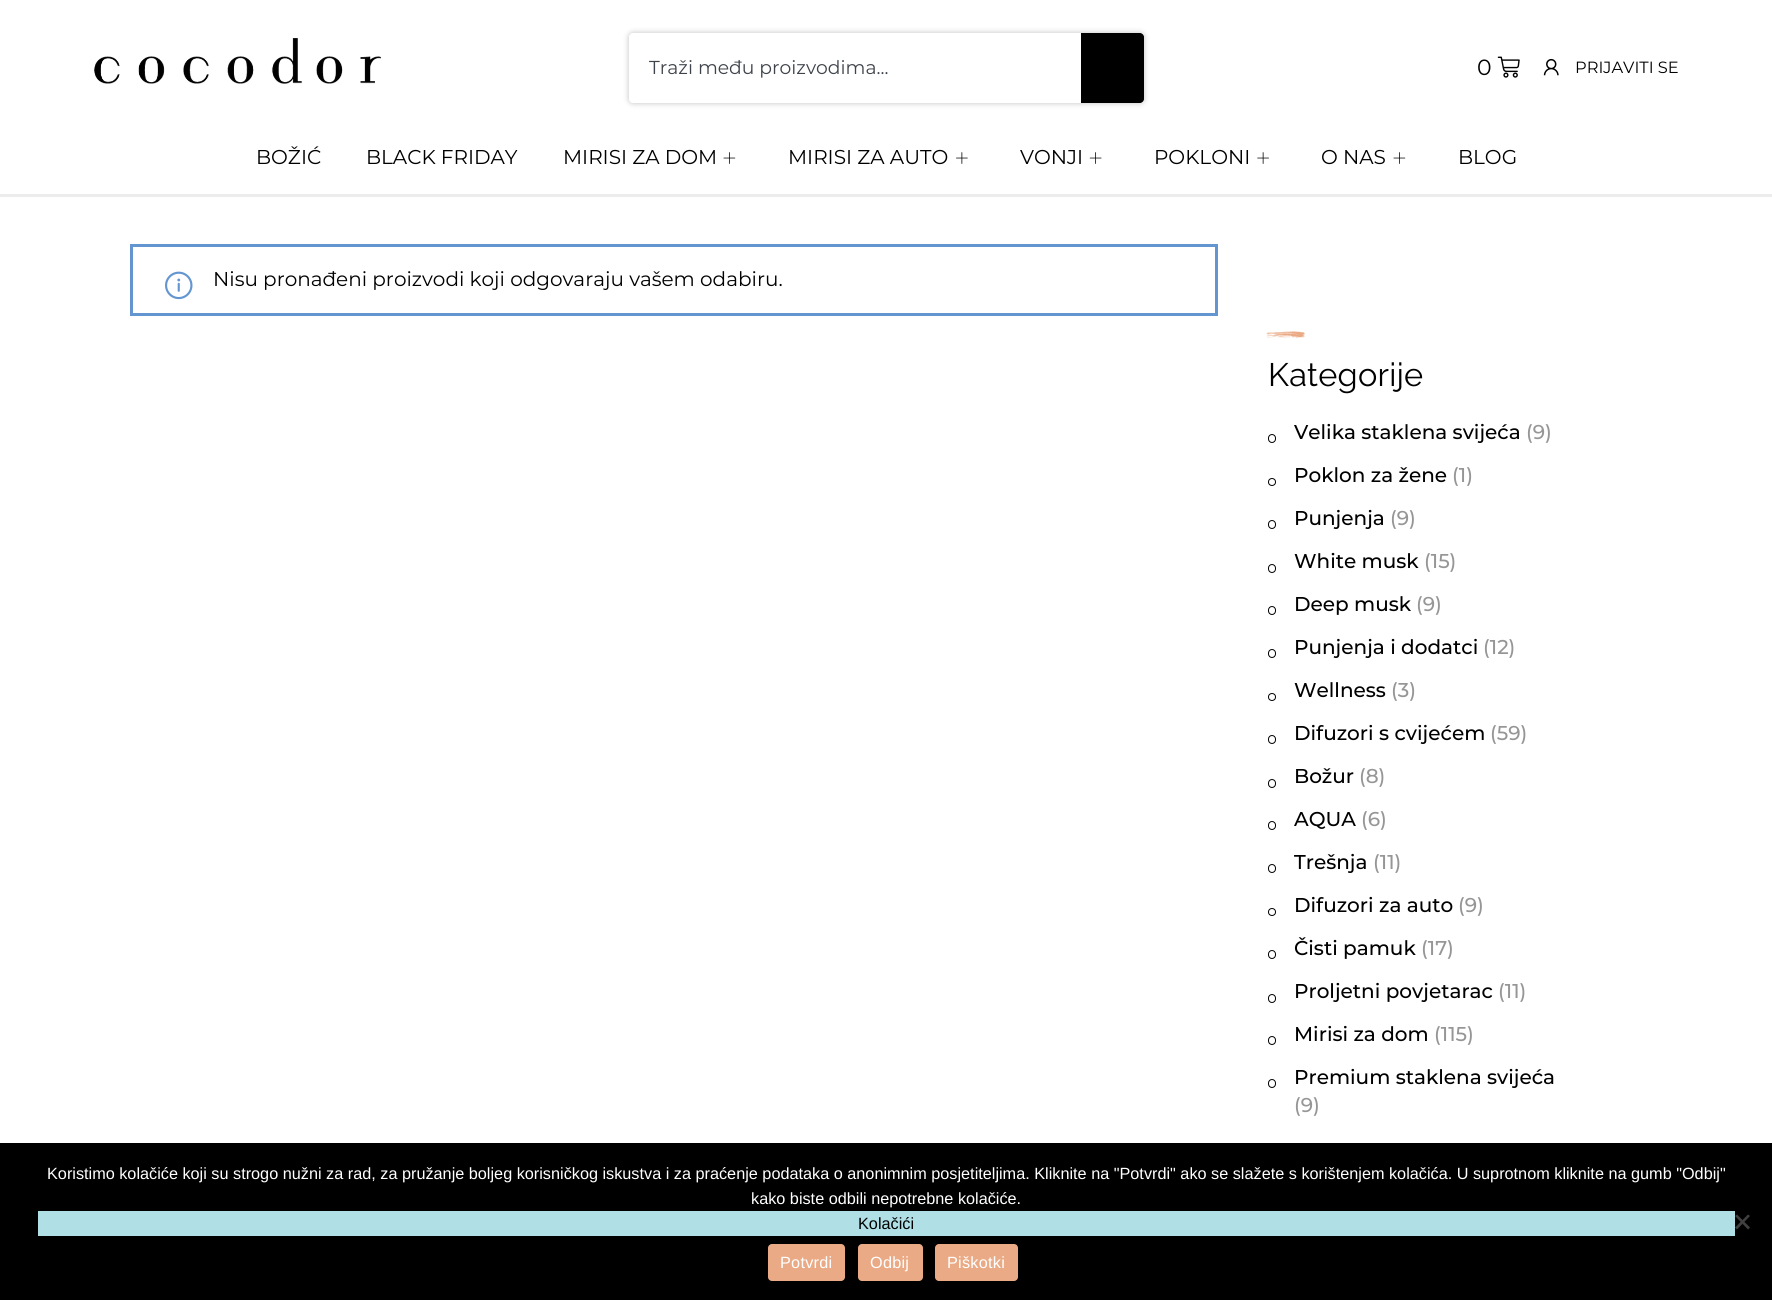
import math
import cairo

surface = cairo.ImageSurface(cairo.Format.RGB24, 1772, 1300)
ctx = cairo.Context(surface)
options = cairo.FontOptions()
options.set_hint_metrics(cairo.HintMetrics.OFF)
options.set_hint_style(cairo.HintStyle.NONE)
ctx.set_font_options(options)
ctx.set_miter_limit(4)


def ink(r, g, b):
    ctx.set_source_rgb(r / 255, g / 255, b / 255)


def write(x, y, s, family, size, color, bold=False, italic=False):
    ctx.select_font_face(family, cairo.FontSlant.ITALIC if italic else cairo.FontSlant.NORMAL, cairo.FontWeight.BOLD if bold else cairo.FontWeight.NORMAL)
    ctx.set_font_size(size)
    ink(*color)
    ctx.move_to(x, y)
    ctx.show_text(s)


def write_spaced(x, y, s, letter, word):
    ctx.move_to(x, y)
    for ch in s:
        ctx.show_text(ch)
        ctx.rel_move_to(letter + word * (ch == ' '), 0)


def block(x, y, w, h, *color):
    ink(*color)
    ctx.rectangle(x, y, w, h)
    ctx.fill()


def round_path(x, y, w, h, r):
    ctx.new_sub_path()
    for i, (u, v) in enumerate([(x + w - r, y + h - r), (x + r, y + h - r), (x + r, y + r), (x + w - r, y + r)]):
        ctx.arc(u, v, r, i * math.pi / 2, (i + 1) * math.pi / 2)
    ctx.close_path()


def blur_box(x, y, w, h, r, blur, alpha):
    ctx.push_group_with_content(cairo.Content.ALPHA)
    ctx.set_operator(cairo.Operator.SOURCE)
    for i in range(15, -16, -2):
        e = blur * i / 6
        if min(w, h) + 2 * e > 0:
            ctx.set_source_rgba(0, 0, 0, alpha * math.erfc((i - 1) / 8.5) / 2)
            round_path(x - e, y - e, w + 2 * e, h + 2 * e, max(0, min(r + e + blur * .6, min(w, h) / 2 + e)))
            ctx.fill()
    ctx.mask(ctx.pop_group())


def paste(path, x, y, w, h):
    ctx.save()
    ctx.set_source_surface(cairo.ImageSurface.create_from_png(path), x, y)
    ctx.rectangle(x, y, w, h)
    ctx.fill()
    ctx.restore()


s1 = dict(family="Montserrat", size=18.75, color=(63, 68, 75))
s2 = dict(family="Montserrat", size=22, color=(0, 0, 0))
s3 = dict(family="Montserrat", size=16.25, color=(0, 0, 0))
s4 = dict(family="Montserrat", size=20, color=(0, 0, 0))
s5 = dict(family="Montserrat Medium", size=20, color=(0, 0, 0))
s6 = dict(family="Montserrat Medium", size=20, color=(150, 150, 150))
s7 = dict(family="Liberation Sans", size=16.25, color=(255, 255, 255))
s8 = dict(family="Liberation Sans", size=16.25, color=(0, 0, 0))

ink(255, 255, 255)
ctx.paint()
block(0, 194, 1772, 3, 236, 236, 236)
paste("pic1.png", 94, 38, 287, 46)
ink(0, 0, 0)
blur_box(629, 33, 515, 70, 4, 3, 0.25)
ink(255, 255, 255)
round_path(629, 33, 515, 70, 4)
ctx.fill()
write(649, 74, "Traži među proizvodima...", **s1)
ink(0, 0, 0)
ctx.new_path()
ctx.move_to(1081, 33)
ctx.line_to(1140, 33)
ctx.curve_to(1142, 33, 1144, 35, 1144, 37)
ctx.line_to(1144, 99)
ctx.curve_to(1144, 101, 1142, 103, 1140, 103)
ctx.line_to(1081, 103)
ctx.close_path()
ctx.fill()
write(1477, 75, "0", **s2)
paste("pic2.png", 1497, 56, 23, 22)
paste("pic3.png", 1543, 58, 16, 18)
write(1575, 73, "PRIJAVITI SE", **s3)
write(256, 164, "BOŽIĆ", **s4)
write(366, 164, "BLACK FRIDAY", **s4)
write(563, 164, "MIRISI ZA DOM", **s4)
paste("pic4.png", 723, 152, 13, 12)
write(788, 164, "MIRISI ZA AUTO", **s4)
paste("pic5.png", 956, 152, 12, 12)
write(1020, 164, "VONJI", **s4)
paste("pic6.png", 1089, 152, 13, 12)
write(1154, 164, "POKLONI", **s4)
paste("pic7.png", 1257, 152, 12, 12)
write(1321, 164, "O NAS", **s4)
paste("pic4.png", 1393, 152, 13, 12)
write(1458, 164, "BLOG", **s4)
ctx.rectangle(131.5, 245.5, 1085, 69)
ink(99, 150, 208)
ctx.set_line_width(3)
ctx.stroke()
paste("pic8.png", 165, 271, 28, 29)
write(213, 286, "Nisu pronađeni proizvodi koji odgovaraju vašem odabiru.", **s4)
paste("pic9.png", 1266, 331, 39, 8)
ctx.select_font_face("Raleway")
ctx.set_font_size(32.5)
write_spaced(1268, 386, "Kategorije", 0.25, 0)
round_path(1268.5, 434.5, 7, 8, 3.5)
ctx.set_line_width(1)
ctx.stroke()
write(1294, 439, "Velika staklena svijeća", **s5)
write(1526, 439, "(9)", **s6)
ctx.new_path()
ctx.arc(1272, 482, 3.5, 0, 2 * math.pi)
ink(0, 0, 0)
ctx.stroke()
write(1294, 482, "Poklon za žene", **s5)
write(1452, 482, "(1)", **s6)
round_path(1268.5, 520.5, 7, 8, 3.5)
ink(0, 0, 0)
ctx.stroke()
write(1294, 525, "Punjenja", **s5)
write(1390, 525, "(9)", **s6)
round_path(1268.5, 564.5, 7, 8, 3.5)
ink(0, 0, 0)
ctx.stroke()
write(1294, 568, "White musk", **s5)
write(1424, 568, "(15)", **s6)
round_path(1268.5, 606.5, 7, 8, 3.5)
ink(0, 0, 0)
ctx.stroke()
write(1294, 611, "Deep musk", **s5)
write(1416, 611, "(9)", **s6)
round_path(1268.5, 649.5, 7, 8, 3.5)
ink(0, 0, 0)
ctx.stroke()
write(1294, 654, "Punjenja i dodatci", **s5)
write(1483, 654, "(12)", **s6)
ctx.new_path()
ctx.arc(1272, 697, 3.5, 0, 2 * math.pi)
ink(0, 0, 0)
ctx.stroke()
write(1294, 697, "Wellness", **s5)
write(1391, 697, "(3)", **s6)
round_path(1268.5, 735.5, 7, 8, 3.5)
ink(0, 0, 0)
ctx.stroke()
write(1294, 740, "Difuzori s cvijećem", **s5)
write(1490, 740, "(59)", **s6)
round_path(1268.5, 779.5, 7, 8, 3.5)
ink(0, 0, 0)
ctx.stroke()
write(1294, 783, "Božur", **s5)
write(1359, 783, "(8)", **s6)
round_path(1268.5, 821.5, 7, 8, 3.5)
ink(0, 0, 0)
ctx.stroke()
write(1294, 826, "AQUA", **s5)
write(1361, 826, "(6)", **s6)
round_path(1268.5, 864.5, 7, 8, 3.5)
ink(0, 0, 0)
ctx.stroke()
write(1294, 869, "Trešnja", **s5)
write(1373, 869, "(11)", **s6)
ctx.new_path()
ctx.arc(1272, 912, 3.5, 0, 2 * math.pi)
ink(0, 0, 0)
ctx.stroke()
write(1294, 912, "Difuzori za auto", **s5)
write(1458, 912, "(9)", **s6)
round_path(1268.5, 950.5, 7, 8, 3.5)
ink(0, 0, 0)
ctx.stroke()
write(1294, 955, "Čisti pamuk", **s5)
write(1421, 955, "(17)", **s6)
round_path(1268.5, 994.5, 7, 8, 3.5)
ink(0, 0, 0)
ctx.stroke()
write(1294, 998, "Proljetni povjetarac", **s5)
write(1498, 998, "(11)", **s6)
round_path(1268.5, 1036.5, 7, 8, 3.5)
ink(0, 0, 0)
ctx.stroke()
write(1294, 1041, "Mirisi za dom", **s5)
write(1434, 1041, "(115)", **s6)
round_path(1268.5, 1079.5, 7, 8, 3.5)
ink(0, 0, 0)
ctx.stroke()
write(1294, 1084, "Premium staklena svijeća", **s5)
write(1294, 1112, "(9)", **s6)
block(0, 1143, 1772, 157, 0, 0, 0)
write(47, 1179, "Koristimo kolačiće koji su strogo nužni za rad, za pružanje boljeg korisničkog iskustva i za praćenje podataka o anonimnim posjetiteljima. Kliknite na \"Potvrdi\" ako se slažete s korištenjem kolačića. U suprotnom kliknite na gumb \"Odbij\"", **s7)
write(751, 1204, "kako biste odbili nepotrebne kolačiće.", **s7)
block(38, 1211, 1697, 25, 176, 224, 230)
write(858, 1229, "Kolačići", **s8)
ink(64, 64, 64)
ctx.new_path()
ctx.move_to(1748, 1214.5)
ctx.line_to(1750, 1216)
ctx.line_to(1737, 1229.5)
ctx.line_to(1735, 1227.5)
ctx.close_path()
ctx.fill()
ctx.new_path()
ctx.move_to(1735, 1216)
ctx.line_to(1737, 1214.5)
ctx.line_to(1750, 1227.5)
ctx.line_to(1748, 1229.5)
ctx.close_path()
ctx.fill()
ink(234, 170, 133)
round_path(768, 1244, 77, 37, 4)
ctx.fill()
ink(255, 255, 255)
write_spaced(780, 1268, "Potvrdi", 0.25, 0)
ink(234, 170, 133)
round_path(858, 1244, 65, 37, 4)
ctx.fill()
ink(255, 255, 255)
write_spaced(870, 1268, "Odbij", 0.25, 0)
ink(234, 170, 133)
round_path(935, 1244, 83, 37, 4)
ctx.fill()
ink(255, 255, 255)
write_spaced(947, 1268, "Piškotki", 0.25, 0)
surface.write_to_png("screenshot.png")
